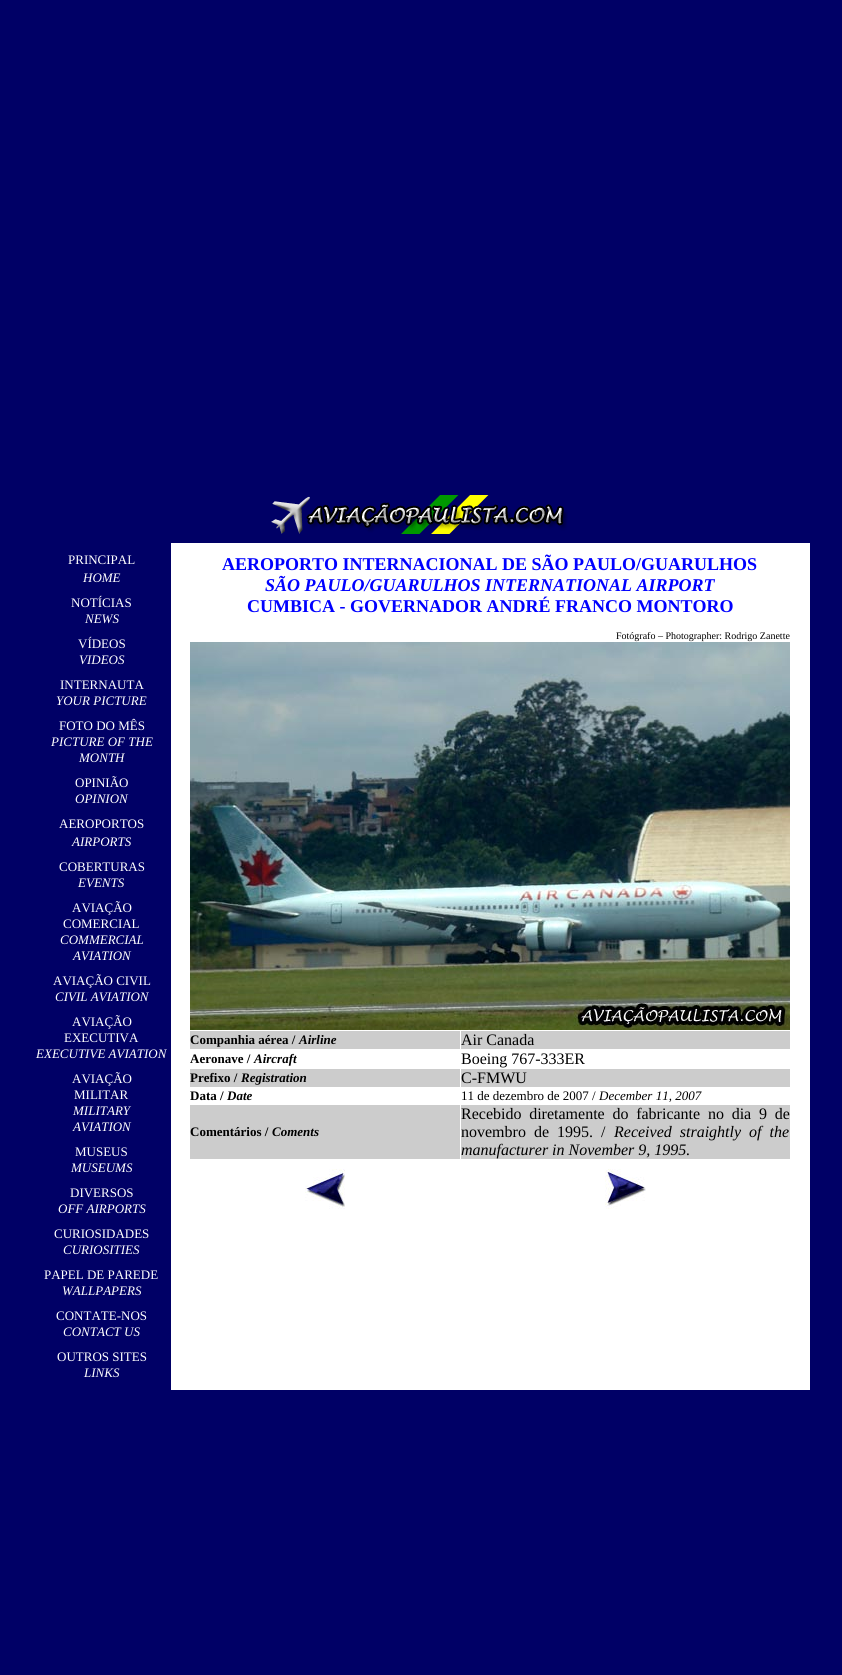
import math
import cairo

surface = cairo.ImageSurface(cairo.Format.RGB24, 842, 1675)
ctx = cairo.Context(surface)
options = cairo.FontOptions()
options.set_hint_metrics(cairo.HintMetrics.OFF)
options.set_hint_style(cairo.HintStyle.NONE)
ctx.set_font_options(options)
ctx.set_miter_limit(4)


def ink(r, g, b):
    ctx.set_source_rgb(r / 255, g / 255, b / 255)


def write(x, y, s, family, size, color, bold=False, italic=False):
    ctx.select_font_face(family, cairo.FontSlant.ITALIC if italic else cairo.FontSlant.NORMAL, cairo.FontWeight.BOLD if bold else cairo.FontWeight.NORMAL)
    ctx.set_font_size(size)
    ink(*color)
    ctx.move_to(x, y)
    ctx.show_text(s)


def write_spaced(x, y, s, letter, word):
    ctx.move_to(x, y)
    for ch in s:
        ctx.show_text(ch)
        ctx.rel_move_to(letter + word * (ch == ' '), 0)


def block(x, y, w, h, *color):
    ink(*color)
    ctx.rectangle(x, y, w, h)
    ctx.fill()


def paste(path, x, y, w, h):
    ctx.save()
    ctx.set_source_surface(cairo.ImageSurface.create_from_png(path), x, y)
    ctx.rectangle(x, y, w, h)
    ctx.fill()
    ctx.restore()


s1 = dict(family="Liberation Serif", size=13, color=(255, 255, 255))
s2 = dict(family="Liberation Serif", size=13, color=(255, 255, 255), italic=True)
s3 = dict(family="Liberation Serif", size=18, color=(0, 0, 255), bold=True)
s4 = dict(family="Liberation Serif", size=18, color=(0, 0, 255), bold=True, italic=True)
s5 = dict(family="Liberation Serif", size=10, color=(0, 0, 0))
s6 = dict(family="Liberation Serif", size=13, color=(0, 0, 0), bold=True)
s7 = dict(family="Liberation Serif", size=13, color=(0, 0, 0), bold=True, italic=True)
s8 = dict(family="Liberation Serif", size=16, color=(0, 0, 0))
s9 = dict(family="Liberation Serif", size=13, color=(0, 0, 0))
s10 = dict(family="Liberation Serif", size=13, color=(0, 0, 0), italic=True)
s11 = dict(family="Liberation Serif", size=16, color=(0, 0, 0), italic=True)

ink(0, 0, 102)
ctx.paint()
paste("pic1.png", 271, 495, 297, 39)
write(68, 564, "PRINCIPAL", **s1)
write(83, 582, "HOME", **s2)
write(71, 607, "NOTÍCIAS", **s1)
write(85, 623, "NEWS", **s2)
write(78, 648, "VÍDEOS", **s1)
write(79, 664, "VIDEOS", **s2)
write(60, 689, "INTERNAUTA", **s1)
write(56, 705, "YOUR PICTURE", **s2)
write(59, 730, "FOTO DO MÊS", **s1)
write(51, 746, "PICTURE OF THE", **s2)
write(79, 762, "MONTH", **s2)
write(75, 787, "OPINIÃO", **s1)
write(75, 803, "OPINION", **s2)
write(59, 828, "AEROPORTOS", **s1)
write(72, 846, "AIRPORTS", **s2)
write(59, 871, "COBERTURAS", **s1)
write(78, 887, "EVENTS", **s2)
write(72, 912, "AVIAÇÃO", **s1)
write(63, 928, "COMERCIAL", **s1)
write(60, 944, "COMMERCIAL", **s2)
write(73, 960, "AVIATION", **s2)
write(53, 985, "AVIAÇÃO CIVIL", **s1)
write(55, 1001, "CIVIL AVIATION", **s2)
write(72, 1026, "AVIAÇÃO", **s1)
write(64, 1042, "EXECUTIVA", **s1)
write(36, 1058, "EXECUTIVE AVIATION", **s2)
write(72, 1083, "AVIAÇÃO", **s1)
write(74, 1099, "MILITAR", **s1)
write(73, 1115, "MILITARY", **s2)
write(73, 1131, "AVIATION", **s2)
write(75, 1156, "MUSEUS", **s1)
write(71, 1172, "MUSEUMS", **s2)
write(70, 1197, "DIVERSOS", **s1)
write(58, 1213, "OFF AIRPORTS", **s2)
write(54, 1238, "CURIOSIDADES", **s1)
write(63, 1254, "CURIOSITIES", **s2)
write(44, 1279, "PAPEL DE PAREDE", **s1)
write(62, 1295, "WALLPAPERS", **s2)
write(56, 1320, "CONTATE-NOS", **s1)
write(63, 1336, "CONTACT US", **s2)
write(57, 1361, "OUTROS SITES", **s1)
write(84, 1377, "LINKS", **s2)
block(171, 543, 639, 847, 255, 255, 255)
write(222, 570, "AEROPORTO INTERNACIONAL DE SÃO PAULO/GUARULHOS", **s3)
write(265, 591, "SÃO PAULO/GUARULHOS INTERNATIONAL AIRPORT", **s4)
write(247, 612, "CUMBICA - GOVERNADOR ANDRÉ FRANCO MONTORO", **s3)
write(616, 639, "Fotógrafo – Photographer: Rodrigo Zanette", **s5)
paste("pic2.png", 190, 642, 600, 388)
block(190, 1031, 270, 18, 204, 204, 204)
write(190, 1044, "Companhia aérea /", **s6)
write(299, 1044, "Airline", **s7)
block(461, 1031, 329, 18, 204, 204, 204)
write(461, 1045, "Air Canada", **s8)
write(190, 1063, "Aeronave /", **s6)
write(254, 1063, "Aircraft", **s7)
write(461, 1064, "Boeing 767-333ER", **s8)
block(190, 1069, 270, 18, 204, 204, 204)
write(190, 1082, "Prefixo /", **s6)
write(241, 1082, "Registration", **s7)
block(461, 1069, 329, 18, 204, 204, 204)
write(461, 1083, "C-FMWU", **s8)
write(190, 1100, "Data /", **s6)
write(227, 1100, "Date", **s7)
write(461, 1100, "11 de dezembro de 2007 /", **s9)
write(599, 1100, "December 11, 2007", **s10)
block(190, 1105, 270, 54, 204, 204, 204)
write(190, 1136, "Comentários /", **s6)
write(272, 1136, "Coments", **s7)
block(461, 1105, 329, 54, 204, 204, 204)
ctx.select_font_face("Liberation Serif")
ctx.set_font_size(16)
ink(0, 0, 0)
write_spaced(461, 1119, "Recebido diretamente do fabricante no dia 9 de", 0, 3.75)
write_spaced(461, 1137, "novembro de 1995. /", 0, 4)
ctx.select_font_face("Liberation Serif", cairo.FontSlant.ITALIC)
write_spaced(614, 1137, "Received straightly of the", 0, 4)
write(461, 1155, "manufacturer in November 9, 1995.", **s11)
paste("pic3.png", 305, 1169, 40, 40)
paste("pic4.png", 605, 1169, 41, 40)
surface.write_to_png("screenshot.png")
